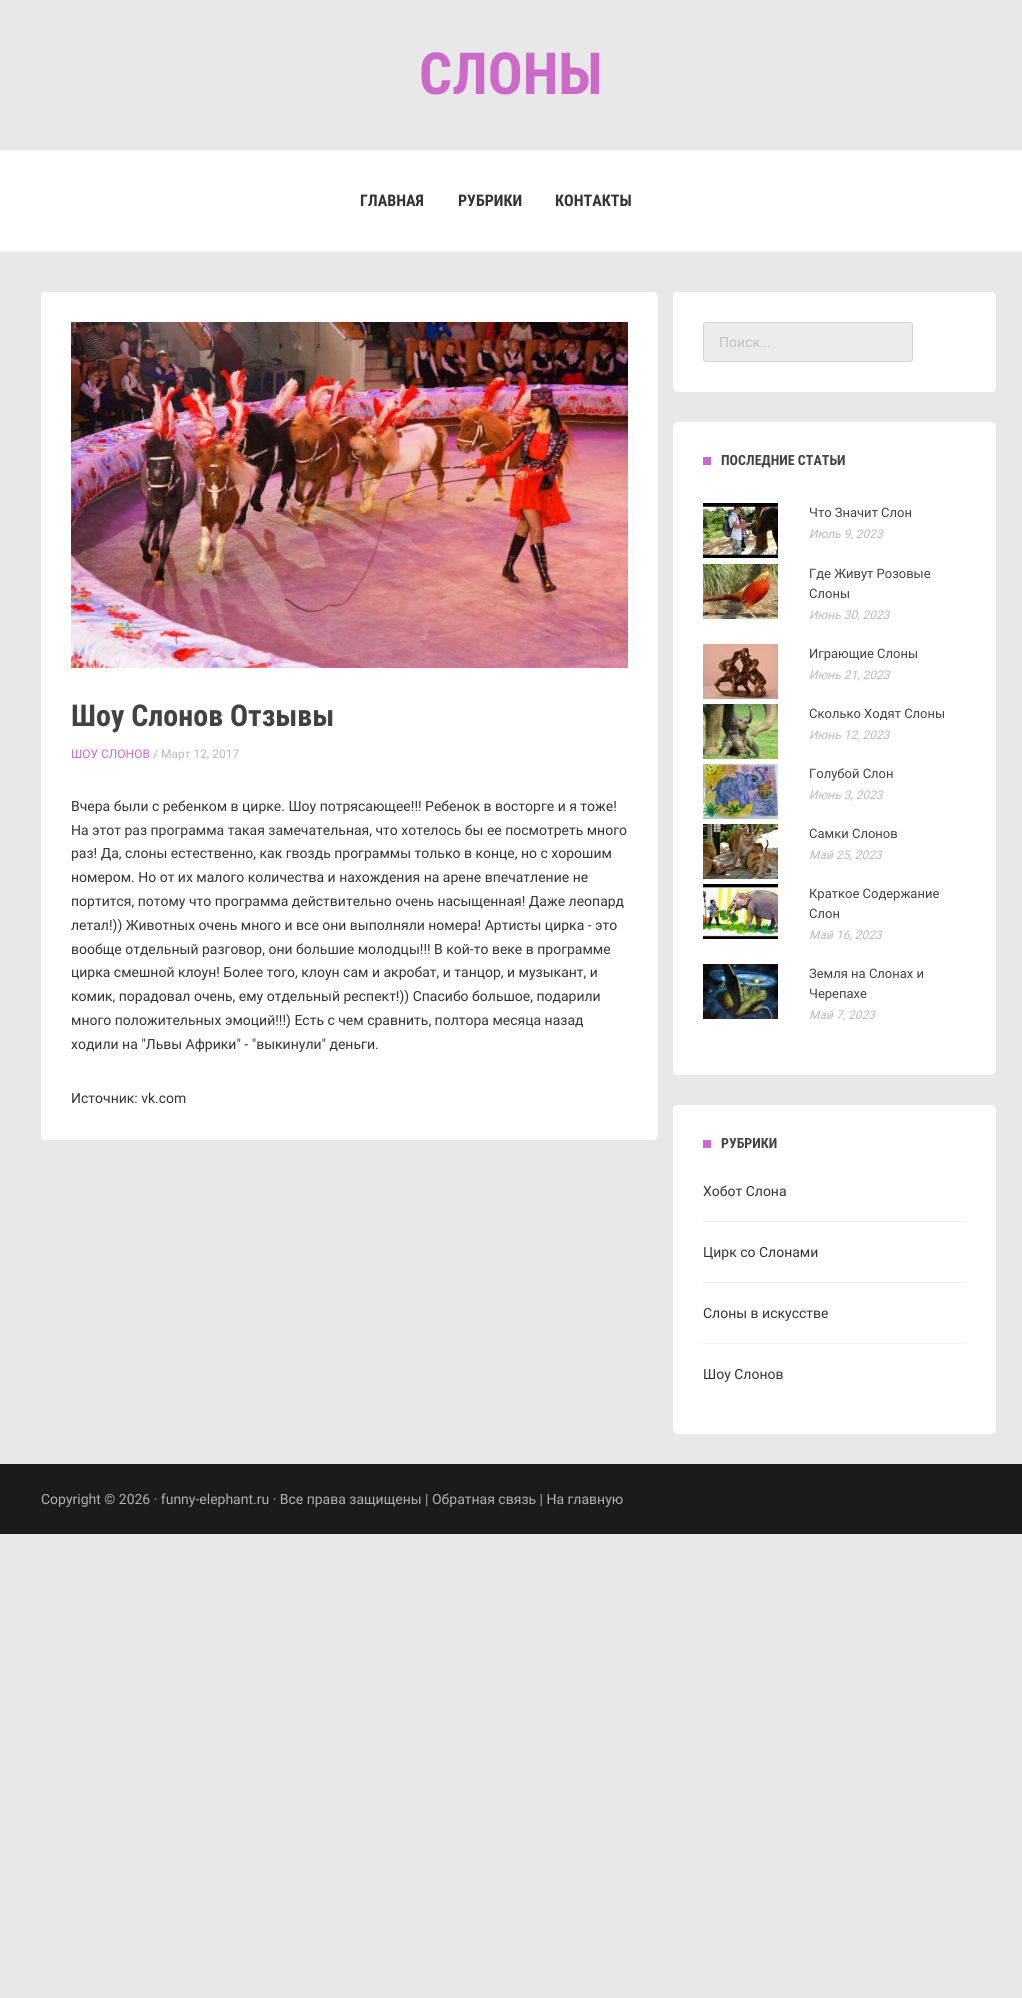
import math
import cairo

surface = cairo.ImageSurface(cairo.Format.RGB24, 1022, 1998)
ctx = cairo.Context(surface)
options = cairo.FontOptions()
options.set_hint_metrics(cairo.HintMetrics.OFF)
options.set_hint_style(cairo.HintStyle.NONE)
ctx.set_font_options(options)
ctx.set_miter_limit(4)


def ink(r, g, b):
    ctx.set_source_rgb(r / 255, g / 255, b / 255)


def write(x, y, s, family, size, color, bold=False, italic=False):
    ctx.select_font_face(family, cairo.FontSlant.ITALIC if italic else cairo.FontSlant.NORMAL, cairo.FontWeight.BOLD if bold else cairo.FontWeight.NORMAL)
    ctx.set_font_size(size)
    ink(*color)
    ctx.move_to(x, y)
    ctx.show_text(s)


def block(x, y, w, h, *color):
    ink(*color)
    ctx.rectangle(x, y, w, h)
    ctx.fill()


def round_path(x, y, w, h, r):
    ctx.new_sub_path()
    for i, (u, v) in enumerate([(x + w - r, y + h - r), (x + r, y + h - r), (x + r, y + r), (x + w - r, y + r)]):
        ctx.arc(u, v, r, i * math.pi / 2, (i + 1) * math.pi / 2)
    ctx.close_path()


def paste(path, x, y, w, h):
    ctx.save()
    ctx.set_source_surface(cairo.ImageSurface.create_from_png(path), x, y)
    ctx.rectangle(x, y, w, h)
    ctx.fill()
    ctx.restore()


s1 = dict(family="Roboto Condensed", size=58, color=(205, 105, 201), bold=True)
s2 = dict(family="Roboto Condensed", size=16, color=(51, 51, 51), bold=True)
s3 = dict(family="Roboto", size=14, color=(191, 191, 191))
s4 = dict(family="Roboto Condensed", size=30, color=(66, 66, 66), bold=True)
s5 = dict(family="Roboto", size=12, color=(205, 105, 201))
s6 = dict(family="Roboto", size=12, color=(185, 185, 185))
s7 = dict(family="Roboto", size=14, color=(51, 51, 51))
s8 = dict(family="Roboto Condensed", size=14, color=(66, 66, 66), bold=True)
s9 = dict(family="Roboto", size=13, color=(66, 66, 66))
s10 = dict(family="Roboto", size=12, color=(185, 185, 185), italic=True)
s11 = dict(family="Roboto", size=14, color=(175, 177, 178))

ink(232, 232, 232)
ctx.paint()
write(419, 94, "СЛОНЫ", **s1)
block(0, 151, 1022, 100, 255, 255, 255)
block(0, 150, 1022, 1, 240, 240, 240)
block(0, 251, 1022, 1, 240, 240, 240)
write(360, 206, "ГЛАВНАЯ", **s2)
write(458, 206, "РУБРИКИ", **s2)
write(555, 206, "КОНТАКТЫ", **s2)
ink(255, 255, 255)
round_path(673, 292, 323, 100, 5)
ctx.fill()
ink(236, 236, 236)
ctx.new_path()
ctx.move_to(706, 323)
ctx.curve_to(705, 323, 704, 324, 704, 325)
ctx.line_to(704, 359)
ctx.curve_to(704, 360, 705, 361, 706, 361)
ctx.line_to(910, 361)
ctx.curve_to(911, 361, 912, 360, 912, 359)
ctx.line_to(912, 325)
ctx.curve_to(912, 324, 911, 323, 910, 323)
ctx.close_path()
ctx.fill()
round_path(703.5, 322.5, 209, 39, 2.5)
ink(211, 209, 209)
ctx.set_line_width(1)
ctx.stroke()
write(719, 347, "Поиск...", **s3)
ink(255, 255, 255)
round_path(41, 292, 617, 848, 5)
ctx.fill()
paste("pic1.png", 71, 322, 557, 346)
write(71, 726, "Шоу Слонов Отзывы", **s4)
write(71, 758, "ШОУ СЛОНОВ", **s5)
write(153, 758, "/ Март 12, 2017", **s6)
write(71, 811, "Вчера были с ребенком в цирке. Шоу потрясающее!!! Ребенок в восторге и я тоже!", **s7)
write(71, 835, "На этот раз программа такая замечательная, что хотелось бы ее посмотреть много", **s7)
write(71, 858, "раз! Да, слоны естественно, как гвоздь программы только в конце, но с хорошим", **s7)
write(71, 882, "номером. Но от их малого количества и нахождения на арене впечатление не", **s7)
write(71, 906, "портится, потому что программа действительно очень насыщенная! Даже леопард", **s7)
write(71, 930, "летал!)) Животных очень много и все они выполняли номера! Артисты цирка - это", **s7)
write(71, 954, "вообще отдельный разговор, они большие молодцы!!! В кой-то веке в программе", **s7)
write(71, 977, "цирка смешной клоун! Более того, клоун сам и акробат, и танцор, и музыкант, и", **s7)
write(71, 1001, "комик, порадовал очень, ему отдельный респект!)) Спасибо большое, подарили", **s7)
write(71, 1025, "много положительных эмоций!!!) Есть с чем сравнить, полтора месяца назад", **s7)
write(71, 1049, "ходили на \"Львы Африки\" - \"выкинули\" деньги.", **s7)
write(71, 1103, "Источник: vk.com", **s7)
ink(255, 255, 255)
round_path(673, 422, 323, 653, 5)
ctx.fill()
block(703, 457, 8, 8, 205, 105, 201)
write(721, 465, "ПОСЛЕДНИЕ СТАТЬИ", **s8)
paste("pic2.png", 703, 503, 75, 55)
write(809, 517, "Что Значит Слон", **s9)
write(809, 538, "Июль 9, 2023", **s10)
paste("pic3.png", 703, 564, 75, 55)
write(809, 578, "Где Живут Розовые", **s9)
write(809, 598, "Слоны", **s9)
write(809, 619, "Июнь 30, 2023", **s10)
paste("pic4.png", 703, 644, 75, 55)
write(809, 658, "Играющие Слоны", **s9)
write(809, 679, "Июнь 21, 2023", **s10)
paste("pic5.png", 703, 704, 75, 55)
write(809, 718, "Сколько Ходят Слоны", **s9)
write(809, 739, "Июнь 12, 2023", **s10)
paste("pic6.png", 703, 764, 75, 55)
write(809, 778, "Голубой Слон", **s9)
write(809, 799, "Июнь 3, 2023", **s10)
paste("pic7.png", 703, 824, 75, 55)
write(809, 838, "Самки Слонов", **s9)
write(809, 859, "Май 25, 2023", **s10)
paste("pic8.png", 703, 884, 75, 55)
write(809, 898, "Краткое Содержание", **s9)
write(809, 918, "Слон", **s9)
write(809, 939, "Май 16, 2023", **s10)
paste("pic9.png", 703, 964, 75, 55)
write(809, 978, "Земля на Слонах и", **s9)
write(809, 998, "Черепахе", **s9)
write(809, 1019, "Май 7, 2023", **s10)
ink(255, 255, 255)
round_path(673, 1105, 323, 329, 5)
ctx.fill()
block(703, 1140, 8, 8, 205, 105, 201)
write(721, 1148, "РУБРИКИ", **s8)
block(703, 1221, 263, 1, 240, 240, 240)
write(703, 1196, "Хобот Слона", **s7)
block(703, 1282, 263, 1, 240, 240, 240)
write(703, 1257, "Цирк со Слонами", **s7)
block(703, 1343, 263, 1, 240, 240, 240)
write(703, 1318, "Слоны в искусстве", **s7)
write(703, 1379, "Шоу Слонов", **s7)
block(0, 1464, 1022, 70, 27, 27, 27)
write(41, 1504, "Copyright © 2026 · funny-elephant.ru · Все права защищены | Обратная связь | На главную", **s11)
surface.write_to_png("screenshot.png")
